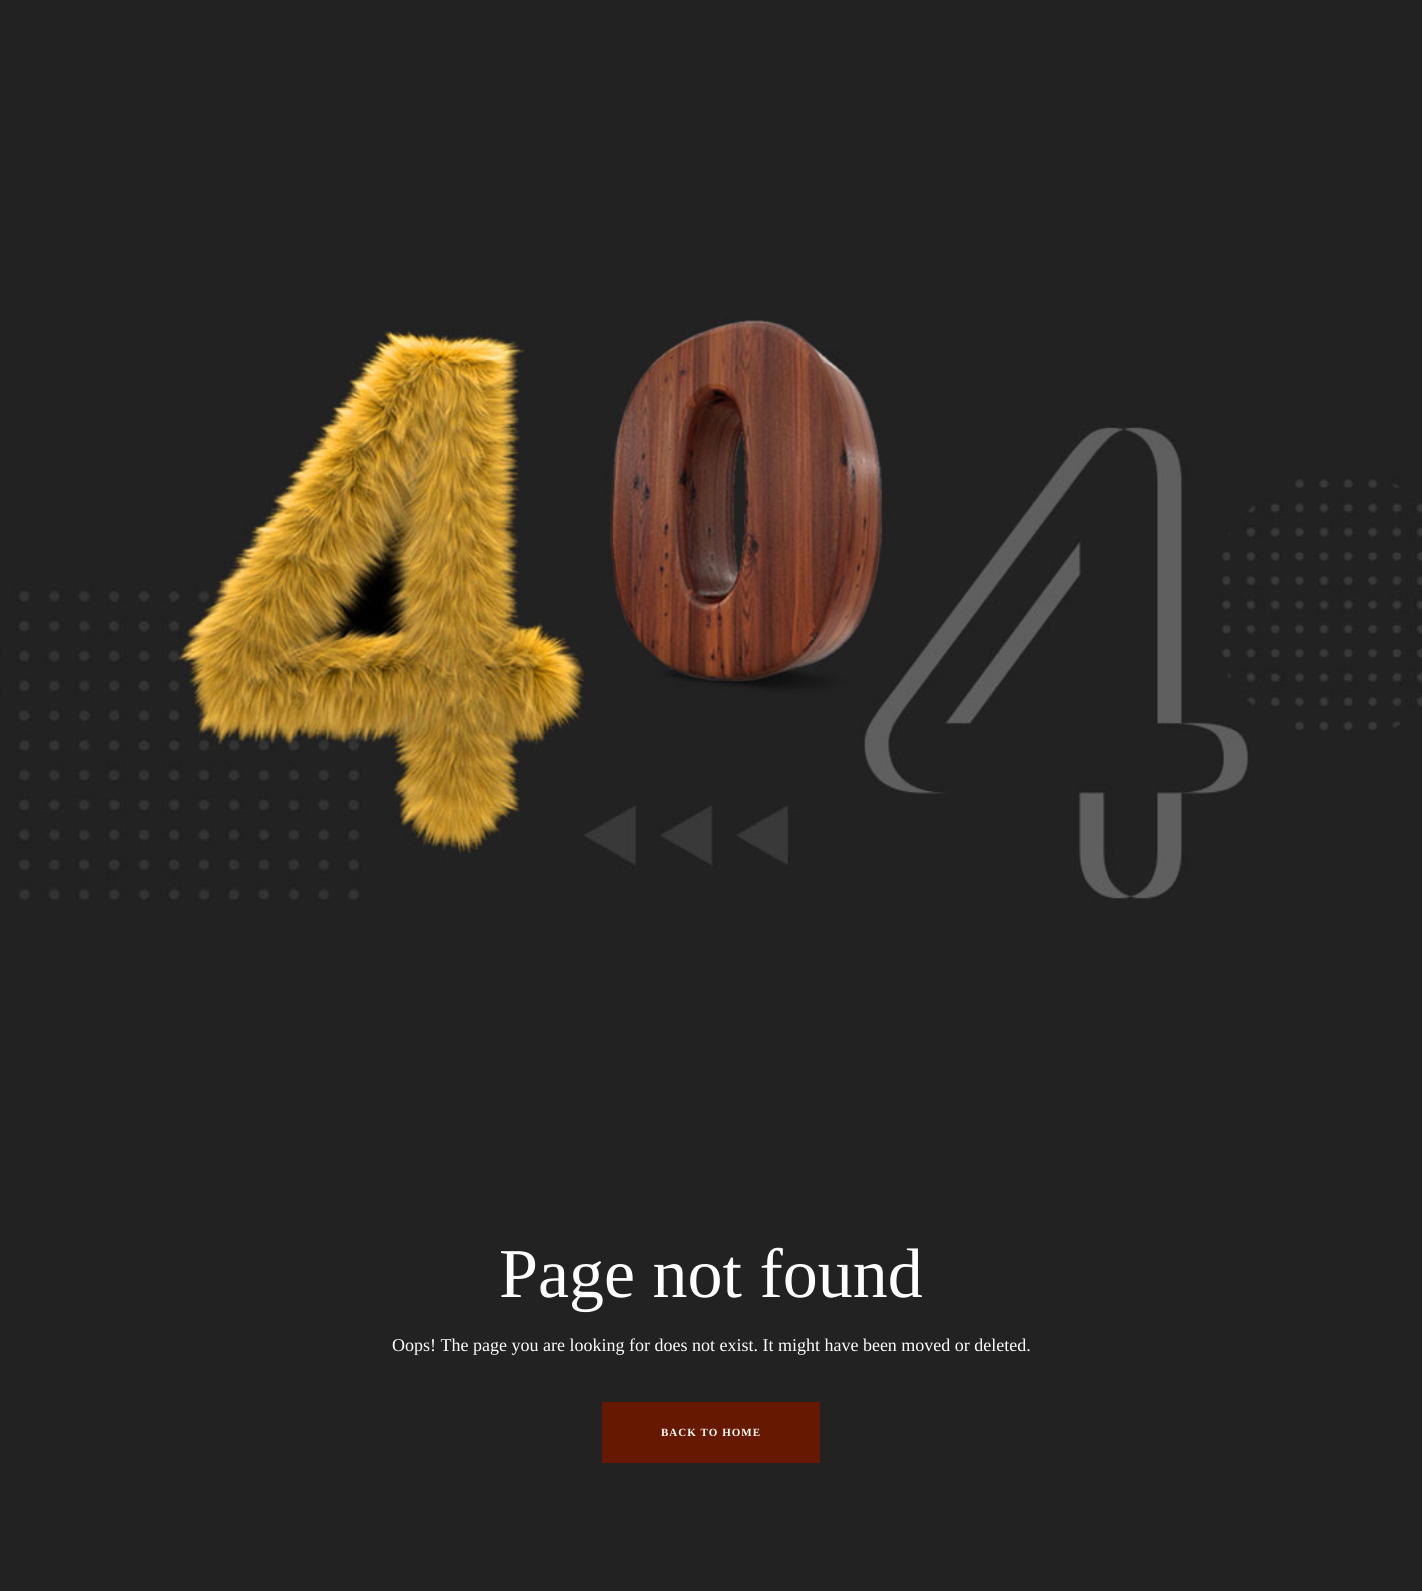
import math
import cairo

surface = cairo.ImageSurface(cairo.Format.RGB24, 1422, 1591)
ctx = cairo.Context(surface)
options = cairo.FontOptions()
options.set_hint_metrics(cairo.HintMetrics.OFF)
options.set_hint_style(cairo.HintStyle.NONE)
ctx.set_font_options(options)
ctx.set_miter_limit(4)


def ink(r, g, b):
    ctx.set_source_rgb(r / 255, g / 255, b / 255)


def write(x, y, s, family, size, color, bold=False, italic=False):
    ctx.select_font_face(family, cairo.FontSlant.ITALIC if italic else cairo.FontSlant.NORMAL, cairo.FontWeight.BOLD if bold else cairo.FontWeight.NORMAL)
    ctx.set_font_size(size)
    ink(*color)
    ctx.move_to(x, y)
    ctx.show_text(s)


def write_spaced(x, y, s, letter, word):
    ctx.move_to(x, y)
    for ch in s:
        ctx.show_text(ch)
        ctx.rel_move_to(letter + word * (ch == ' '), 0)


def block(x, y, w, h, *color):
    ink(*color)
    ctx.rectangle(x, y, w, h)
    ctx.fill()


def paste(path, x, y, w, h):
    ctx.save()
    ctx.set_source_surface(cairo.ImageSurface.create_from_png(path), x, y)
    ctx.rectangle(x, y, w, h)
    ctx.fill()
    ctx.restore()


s1 = dict(family="Liberation Serif", size=70, color=(255, 255, 255))
s2 = dict(family="Liberation Serif", size=18, color=(255, 255, 255))

ink(255, 255, 255)
ctx.paint()
paste("pic1.png", 0, 0, 1422, 1591)
write(499, 1297, "Page not found", **s1)
write(392, 1351, "Oops! The page you are looking for does not exist. It might have been moved or deleted.", **s2)
block(602, 1402, 218, 61, 103, 24, 0)
ctx.select_font_face("Liberation Serif", cairo.FontSlant.NORMAL, cairo.FontWeight.BOLD)
ctx.set_font_size(11)
ink(255, 255, 255)
write_spaced(661, 1436, "BACK TO HOME", 1, 0)
surface.write_to_png("screenshot.png")
